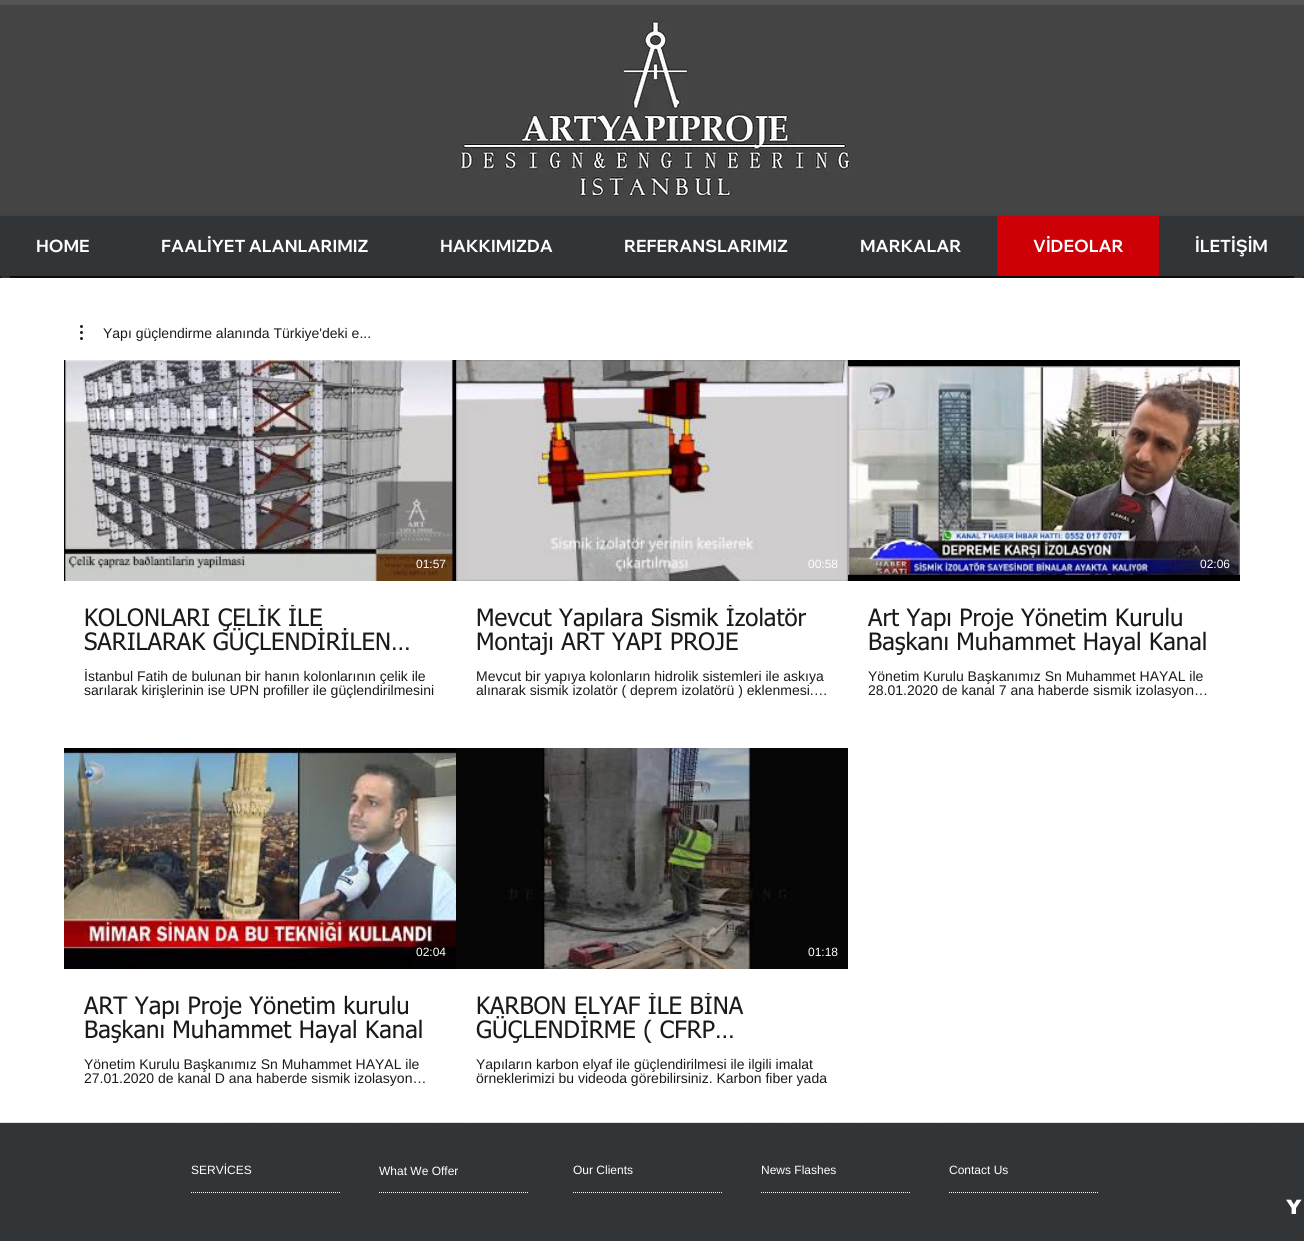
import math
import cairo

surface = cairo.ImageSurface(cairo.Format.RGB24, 1304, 1241)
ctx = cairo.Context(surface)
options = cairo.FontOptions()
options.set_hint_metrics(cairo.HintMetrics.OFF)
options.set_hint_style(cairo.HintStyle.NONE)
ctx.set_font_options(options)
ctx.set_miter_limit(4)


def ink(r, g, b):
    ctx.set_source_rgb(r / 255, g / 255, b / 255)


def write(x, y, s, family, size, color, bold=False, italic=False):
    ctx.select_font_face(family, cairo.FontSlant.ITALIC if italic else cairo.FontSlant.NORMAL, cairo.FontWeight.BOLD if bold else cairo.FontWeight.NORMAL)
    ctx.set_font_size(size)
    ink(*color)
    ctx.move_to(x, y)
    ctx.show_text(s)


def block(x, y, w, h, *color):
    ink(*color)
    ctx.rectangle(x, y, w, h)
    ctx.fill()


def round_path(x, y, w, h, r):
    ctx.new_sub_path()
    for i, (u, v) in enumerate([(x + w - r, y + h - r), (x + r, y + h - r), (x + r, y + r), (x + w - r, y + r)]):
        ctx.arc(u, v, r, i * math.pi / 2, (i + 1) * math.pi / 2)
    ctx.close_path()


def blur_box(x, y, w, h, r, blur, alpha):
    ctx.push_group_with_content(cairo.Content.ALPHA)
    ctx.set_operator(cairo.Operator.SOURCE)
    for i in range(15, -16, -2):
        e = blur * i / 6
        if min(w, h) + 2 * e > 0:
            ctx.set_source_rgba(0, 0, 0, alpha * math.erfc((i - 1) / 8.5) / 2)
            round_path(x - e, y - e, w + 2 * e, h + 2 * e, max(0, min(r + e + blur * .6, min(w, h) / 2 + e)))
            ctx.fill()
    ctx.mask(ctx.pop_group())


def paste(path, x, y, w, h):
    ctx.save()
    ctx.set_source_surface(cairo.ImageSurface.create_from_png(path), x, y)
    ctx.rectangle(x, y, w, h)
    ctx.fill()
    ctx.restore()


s1 = dict(family="Wix Madefor Display", size=17, color=(255, 255, 255), bold=True)
s2 = dict(family="Liberation Sans", size=14, color=(24, 26, 28))
s3 = dict(family="Liberation Sans", size=12, color=(255, 255, 255))
s4 = dict(family="tahoma", size=24, color=(24, 26, 28))
s5 = dict(family="arial Black", size=20, color=(255, 255, 255))

ink(212, 214, 215)
ctx.paint()
block(0, 0, 1304, 278, 24, 26, 28)
paste("pic1.png", 0, 0, 1304, 5)
block(0, 5, 1304, 211, 68, 68, 68)
paste("pic2.png", 460, 19, 392, 180)
ink(99, 103, 105)
ctx.new_path()
ctx.move_to(0, 276)
ctx.line_to(10, 276)
ctx.line_to(10, 286)
ctx.close_path()
ctx.fill()
ctx.new_path()
ctx.move_to(1294, 276)
ctx.line_to(1304, 276)
ctx.line_to(1294, 286)
ctx.close_path()
ctx.fill()
ink(0, 0, 0)
blur_box(0, 218, 1304, 60, 0, 1.5, 0.7)
block(0, 216, 1304, 60, 49, 53, 56)
write(36, 252, "HOME", **s1)
write(161, 252, "FAALİYET ALANLARIMIZ", **s1)
write(440, 252, "HAKKIMIZDA", **s1)
write(624, 252, "REFERANSLARIMIZ", **s1)
write(860, 252, "MARKALAR", **s1)
block(997, 216, 162, 60, 204, 0, 6)
write(1033, 252, "VİDEOLAR", **s1)
write(1195, 252, "İLETİŞİM", **s1)
block(0, 278, 1304, 844, 255, 255, 255)
paste("pic3.png", 80, 325, 3, 15)
write(103, 338, "Yapı güçlendirme alanında Türkiye'deki e...", **s2)
paste("pic4.png", 454, 360, 2, 221)
paste("pic5.png", 64, 360, 390, 221)
write(416, 568, "01:57", **s3)
ctx.save()
ctx.rectangle(84, 605, 352, 52)
ctx.clip()
write(84, 626, "KOLONLARI ÇELİK İLE", **s4)
ctx.restore()
write(84, 650, "SARILARAK GÜÇLENDİRİLEN…", **s4)
write(84, 681, "İstanbul Fatih de bulunan bir hanın kolonlarının çelik ile", **s2)
write(84, 695, "sarılarak kirişlerinin ise UPN profiller ile güçlendirilmesini", **s2)
paste("pic6.png", 456, 360, 392, 221)
write(808, 568, "00:58", **s3)
ctx.save()
ctx.rectangle(476, 605, 352, 52)
ctx.clip()
write(476, 626, "Mevcut Yapılara Sismik İzolatör", **s4)
ctx.restore()
write(476, 650, "Montajı ART YAPI PROJE", **s4)
write(476, 681, "Mevcut bir yapıya kolonların hidrolik sistemleri ile askıya", **s2)
write(476, 695, "alınarak sismik izolatör ( deprem izolatörü ) eklenmesi.…", **s2)
paste("pic7.png", 848, 360, 392, 221)
paste("pic8.png", 848, 365, 392, 211)
write(1200, 568, "02:06", **s3)
write(868, 626, "Art Yapı Proje Yönetim Kurulu", **s4)
write(868, 650, "Başkanı Muhammet Hayal Kanal", **s4)
write(868, 681, "Yönetim Kurulu Başkanımız Sn Muhammet HAYAL ile", **s2)
write(868, 695, "28.01.2020 de kanal 7 ana haberde sismik izolasyon…", **s2)
paste("pic9.png", 64, 748, 392, 221)
paste("pic10.png", 64, 751, 392, 199)
write(416, 956, "02:04", **s3)
write(84, 1014, "ART Yapı Proje Yönetim kurulu", **s4)
write(84, 1038, "Başkanı Muhammet Hayal Kanal", **s4)
write(84, 1069, "Yönetim Kurulu Başkanımız Sn Muhammet HAYAL ile", **s2)
write(84, 1083, "27.01.2020 de kanal D ana haberde sismik izolasyon…", **s2)
paste("pic11.png", 456, 748, 392, 221)
paste("pic12.png", 512, 748, 269, 221)
write(808, 956, "01:18", **s3)
ctx.save()
ctx.rectangle(476, 993, 352, 52)
ctx.clip()
write(476, 1014, "KARBON ELYAF İLE BİNA", **s4)
ctx.restore()
write(476, 1038, "GÜÇLENDİRME ( CFRP…", **s4)
write(476, 1069, "Yapıların karbon elyaf ile güçlendirilmesi ile ilgili imalat", **s2)
write(476, 1083, "örneklerimizi bu videoda görebilirsiniz. Karbon fiber yada", **s2)
block(0, 1123, 1304, 118, 49, 53, 56)
write(191, 1174, "SERVİCES", **s3)
write(379, 1175, "What We Offer", **s3)
write(573, 1174, "Our Clients", **s3)
write(761, 1174, "News Flashes", **s3)
write(949, 1174, "Contact Us", **s3)
ctx.new_path()
ctx.move_to(191, 1192.5)
ctx.line_to(341, 1192.5)
ctx.set_line_width(1)
ctx.set_dash([1, 1])
ctx.stroke()
ctx.new_path()
ctx.move_to(379, 1192.5)
ctx.line_to(529, 1192.5)
ctx.stroke()
ctx.new_path()
ctx.move_to(573, 1192.5)
ctx.line_to(723, 1192.5)
ctx.stroke()
ctx.new_path()
ctx.move_to(761, 1192.5)
ctx.line_to(911, 1192.5)
ctx.stroke()
ctx.new_path()
ctx.move_to(949, 1192.5)
ctx.line_to(1099, 1192.5)
ctx.stroke()
write(1286, 1214, "Y", **s5)
paste("pic13.png", 0, 1122, 1304, 1)
surface.write_to_png("screenshot.png")
